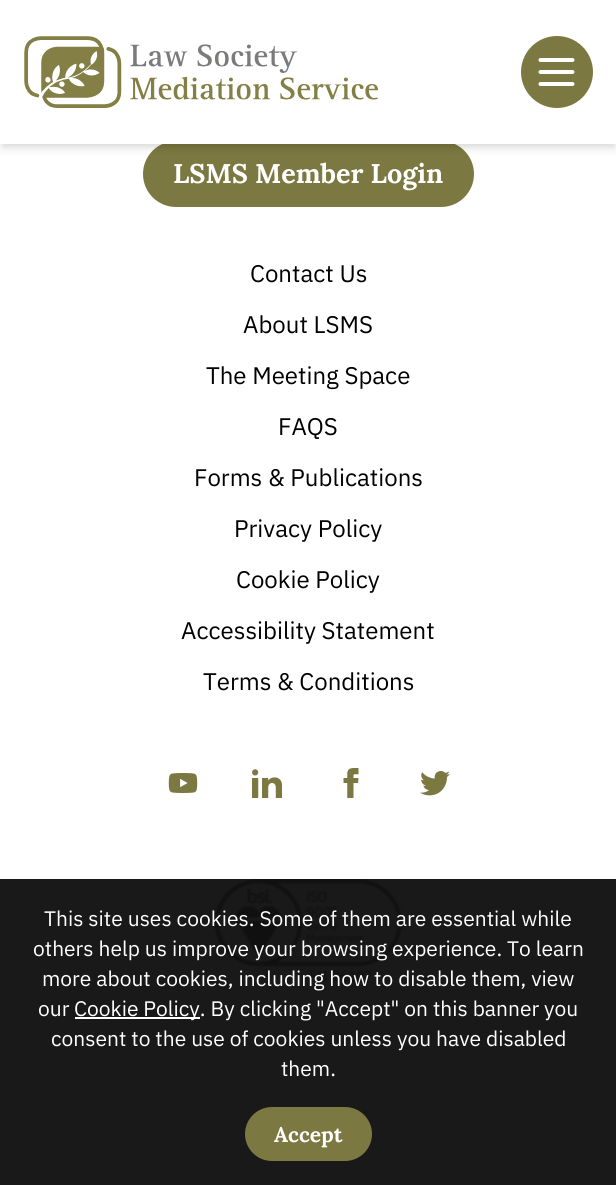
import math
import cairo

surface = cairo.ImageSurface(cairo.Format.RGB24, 616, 1185)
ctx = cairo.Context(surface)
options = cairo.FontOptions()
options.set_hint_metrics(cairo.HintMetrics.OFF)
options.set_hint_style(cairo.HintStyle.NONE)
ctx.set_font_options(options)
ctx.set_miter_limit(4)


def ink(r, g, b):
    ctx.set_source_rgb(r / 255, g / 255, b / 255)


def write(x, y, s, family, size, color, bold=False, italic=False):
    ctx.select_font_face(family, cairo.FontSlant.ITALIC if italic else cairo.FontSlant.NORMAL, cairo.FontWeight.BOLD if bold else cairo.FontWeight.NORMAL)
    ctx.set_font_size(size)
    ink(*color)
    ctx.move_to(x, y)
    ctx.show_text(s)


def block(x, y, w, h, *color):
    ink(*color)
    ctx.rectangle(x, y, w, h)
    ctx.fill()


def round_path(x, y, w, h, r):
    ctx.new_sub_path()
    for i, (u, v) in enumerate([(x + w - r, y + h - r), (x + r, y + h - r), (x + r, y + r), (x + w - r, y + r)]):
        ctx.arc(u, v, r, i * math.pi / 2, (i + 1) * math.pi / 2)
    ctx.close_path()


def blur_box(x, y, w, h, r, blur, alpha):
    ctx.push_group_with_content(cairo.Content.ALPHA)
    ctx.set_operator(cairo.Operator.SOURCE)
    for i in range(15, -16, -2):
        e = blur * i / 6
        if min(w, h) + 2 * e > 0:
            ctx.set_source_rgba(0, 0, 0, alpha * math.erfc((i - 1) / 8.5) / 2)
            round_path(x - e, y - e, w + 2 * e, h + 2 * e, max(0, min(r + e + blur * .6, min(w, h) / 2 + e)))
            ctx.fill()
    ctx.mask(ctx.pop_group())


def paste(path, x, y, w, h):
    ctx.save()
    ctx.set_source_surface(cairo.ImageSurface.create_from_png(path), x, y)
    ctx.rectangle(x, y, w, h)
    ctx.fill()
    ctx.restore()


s1 = dict(family="Lora", size=27, color=(255, 255, 255), bold=True)
s2 = dict(family="IBM Plex Sans", size=24, color=(0, 0, 0))
s3 = dict(family="IBM Plex Sans", size=21, color=(255, 255, 255))
s4 = dict(family="Lora", size=21, color=(255, 255, 255), bold=True)

ink(255, 255, 255)
ctx.paint()
block(0, 879, 616, 306, 25, 25, 25)
ink(124, 120, 65)
round_path(143, 141, 331, 66, 33)
ctx.fill()
ink(0, 0, 0)
blur_box(3, 6, 611, 138, 0, 3, 0.1)
blur_box(2, 8, 613, 141, 0, 4.5, 0.1)
block(0, 1, 616, 143, 255, 255, 255)
paste("pic1.png", 24, 36, 354, 72)
ink(124, 120, 65)
ctx.arc(557, 72, 36, 0, 2 * math.pi)
ctx.fill()
ctx.new_path()
ctx.move_to(540.5, 60)
ctx.line_to(572.5, 60)
ctx.move_to(540.5, 72)
ctx.line_to(572.5, 72)
ctx.move_to(540.5, 84)
ctx.line_to(572.5, 84)
ink(255, 255, 255)
ctx.set_line_width(4)
ctx.set_line_cap(cairo.LineCap.ROUND)
ctx.set_line_join(cairo.LineJoin.ROUND)
ctx.stroke()
write(173, 183, "LSMS Member Login", **s1)
write(250, 282, "Contact Us", **s2)
write(243, 333, "About LSMS", **s2)
write(206, 384, "The Meeting Space", **s2)
write(278, 435, "FAQS", **s2)
write(194, 486, "Forms & Publications", **s2)
write(234, 537, "Privacy Policy", **s2)
write(236, 588, "Cookie Policy", **s2)
write(181, 639, "Accessibility Statement", **s2)
write(203, 690, "Terms & Conditions", **s2)
paste("pic2.png", 168, 773, 30, 20)
paste("pic3.png", 252, 769, 30, 29)
paste("pic4.png", 343, 768, 16, 30)
paste("pic5.png", 420, 771, 30, 25)
paste("pic6.png", 214, 879, 190, 104)
write(44, 926, "This site uses cookies. Some of them are essential while", **s3)
write(33, 956, "others help us improve your browsing experience. To learn", **s3)
write(42, 986, "more about cookies, including how to disable them, view", **s3)
write(38, 1016, "our", **s3)
block(75, 1017, 125, 2, 255, 255, 255)
write(74, 1016, "Cookie Policy. By clicking \"Accept\" on this banner you", **s3)
write(51, 1046, "consent to the use of cookies unless you have disabled", **s3)
write(281, 1076, "them.", **s3)
ink(124, 120, 65)
round_path(245, 1107, 127, 54, 27)
ctx.fill()
write(274, 1142, "Accept", **s4)
surface.write_to_png("screenshot.png")
